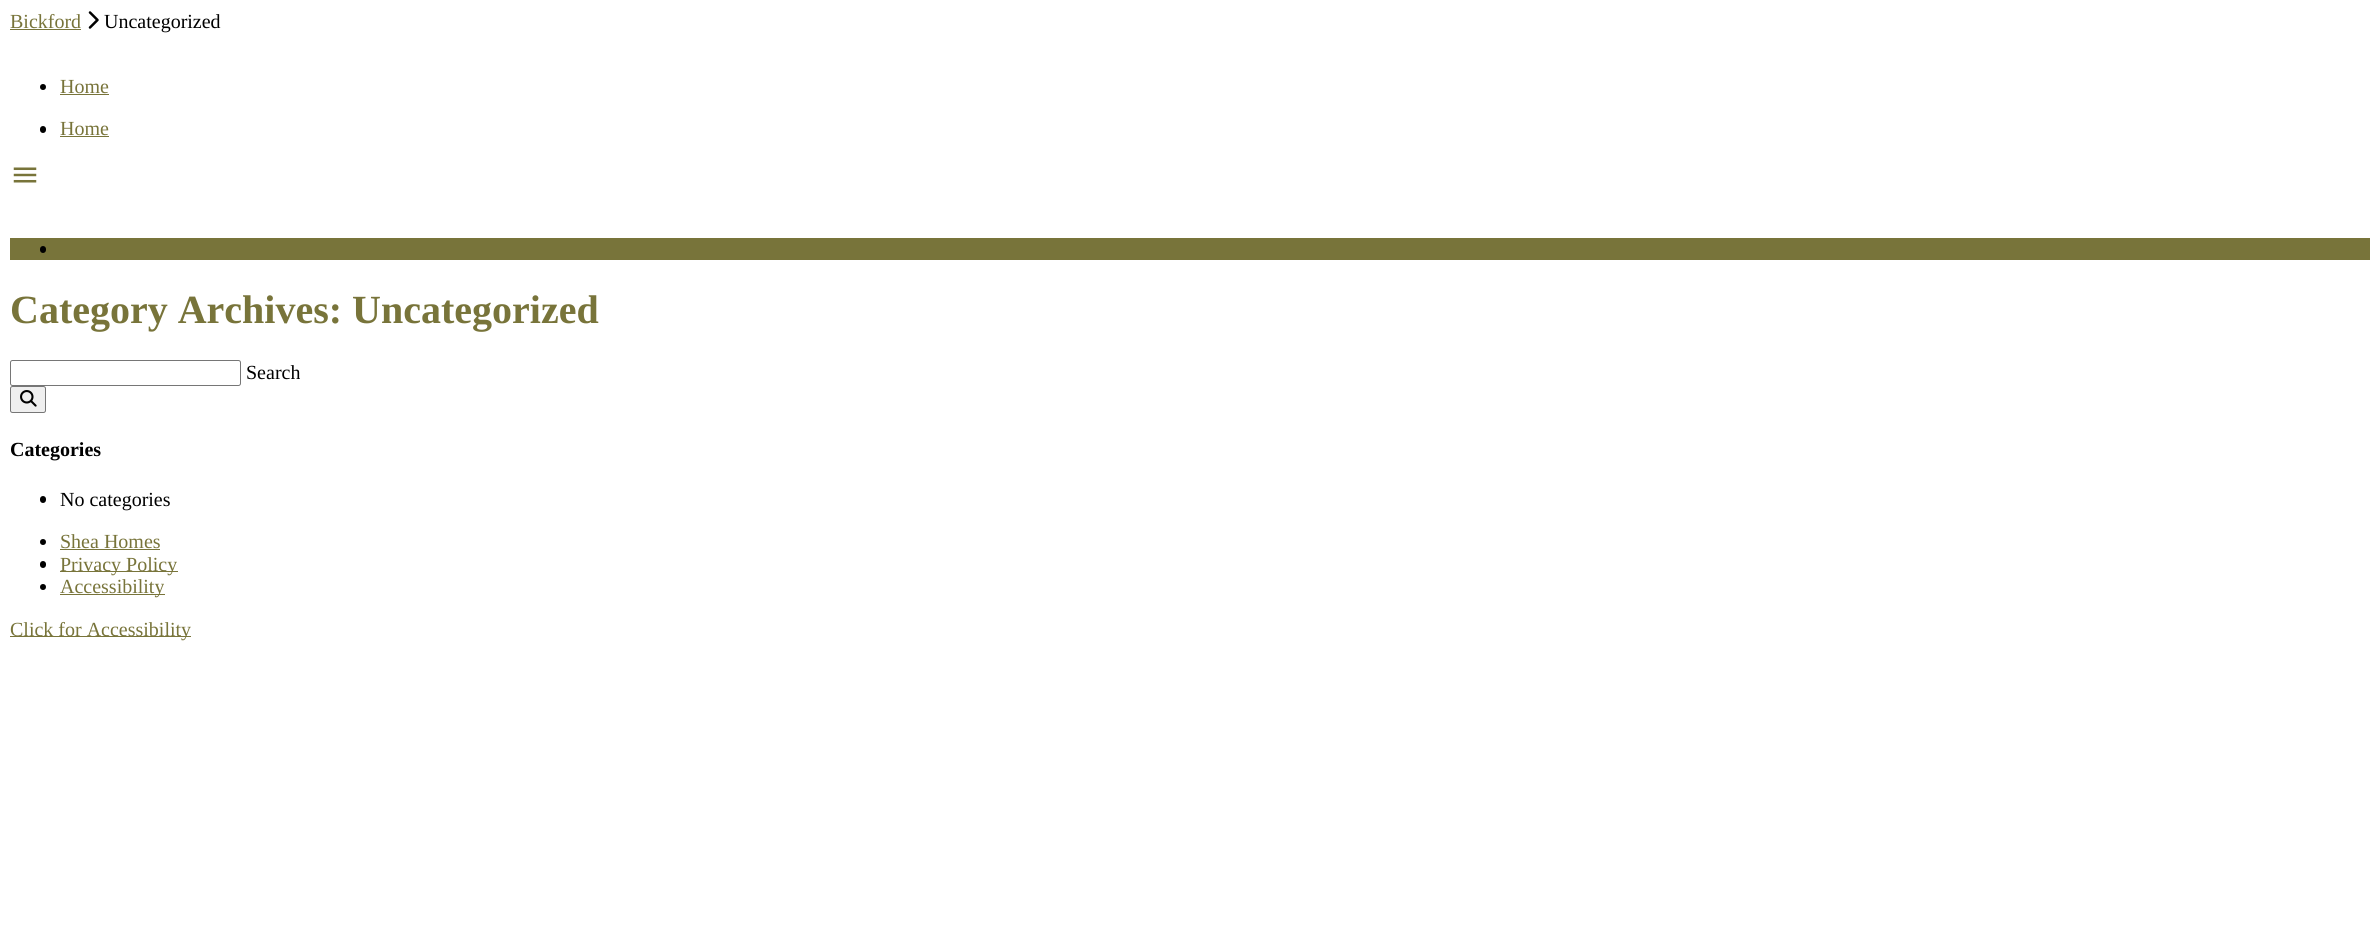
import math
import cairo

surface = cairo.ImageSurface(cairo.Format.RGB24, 2379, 934)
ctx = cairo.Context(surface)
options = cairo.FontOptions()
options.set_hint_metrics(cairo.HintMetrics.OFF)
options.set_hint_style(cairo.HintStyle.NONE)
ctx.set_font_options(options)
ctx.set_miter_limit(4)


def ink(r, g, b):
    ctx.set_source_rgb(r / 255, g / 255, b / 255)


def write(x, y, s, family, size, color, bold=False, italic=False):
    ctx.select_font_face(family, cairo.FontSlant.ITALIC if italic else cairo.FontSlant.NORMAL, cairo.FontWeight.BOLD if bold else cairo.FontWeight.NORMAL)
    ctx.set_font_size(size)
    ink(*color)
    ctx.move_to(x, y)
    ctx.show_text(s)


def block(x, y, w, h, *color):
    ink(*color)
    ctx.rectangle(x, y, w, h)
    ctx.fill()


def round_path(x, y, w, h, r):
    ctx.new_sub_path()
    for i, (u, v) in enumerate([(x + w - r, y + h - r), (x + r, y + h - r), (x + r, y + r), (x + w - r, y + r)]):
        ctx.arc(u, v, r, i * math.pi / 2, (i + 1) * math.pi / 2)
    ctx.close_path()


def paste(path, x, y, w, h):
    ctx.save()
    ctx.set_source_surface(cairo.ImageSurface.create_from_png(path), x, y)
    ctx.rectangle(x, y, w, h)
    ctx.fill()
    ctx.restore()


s1 = dict(family="Liberation Serif", size=20, color=(120, 116, 58))
s2 = dict(family="Liberation Serif", size=20, color=(0, 0, 0))
s3 = dict(family="Liberation Serif", size=40, color=(120, 116, 58), bold=True)
s4 = dict(family="Liberation Serif", size=20, color=(0, 0, 0), bold=True)

ink(255, 255, 255)
ctx.paint()
write(10, 28, "Bickford", **s1)
block(10, 29, 71, 1, 120, 116, 58)
paste("pic1.png", 88, 11, 11, 18)
write(104, 28, "Uncategorized", **s2)
ctx.new_path()
ctx.arc(43, 87, 3, 0, 2 * math.pi)
ctx.fill()
write(60, 93, "Home", **s1)
block(60, 94, 49, 1, 120, 116, 58)
ink(0, 0, 0)
round_path(40, 126, 6, 7, 3)
ctx.fill()
write(60, 135, "Home", **s1)
block(60, 136, 49, 1, 120, 116, 58)
paste("pic2.png", 13, 167, 24, 16)
block(10, 238, 2360, 22, 120, 116, 58)
ink(0, 0, 0)
round_path(40, 246, 6, 7, 3)
ctx.fill()
write(10, 323, "Category Archives: Uncategorized", **s3)
round_path(10.5, 360.5, 230, 25, 2)
ink(118, 118, 118)
ctx.set_line_width(1)
ctx.stroke()
write(246, 379, "Search", **s2)
ink(239, 239, 239)
round_path(10.5, 386.5, 35, 26, 2)
ctx.fill_preserve()
ink(118, 118, 118)
ctx.stroke()
paste("pic3.png", 20, 390, 17, 17)
write(10, 456, "Categories", **s4)
round_path(40, 496, 6, 7, 3)
ctx.fill()
write(60, 506, "No categories", **s2)
ctx.new_path()
ctx.arc(43, 542, 3, 0, 2 * math.pi)
ctx.fill()
write(60, 548, "Shea Homes", **s1)
block(60, 549, 100, 1, 120, 116, 58)
ink(0, 0, 0)
round_path(40, 561, 6, 7, 3)
ctx.fill()
block(60, 571, 118, 1, 120, 116, 58)
write(60, 571, "Privacy Policy", **s1)
ink(0, 0, 0)
ctx.new_path()
ctx.arc(43, 587, 3, 0, 2 * math.pi)
ctx.fill()
block(60, 594, 105, 1, 120, 116, 58)
write(60, 593, "Accessibility", **s1)
block(10, 636, 181, 1, 120, 116, 58)
write(10, 636, "Click for Accessibility", **s1)
surface.write_to_png("screenshot.png")
